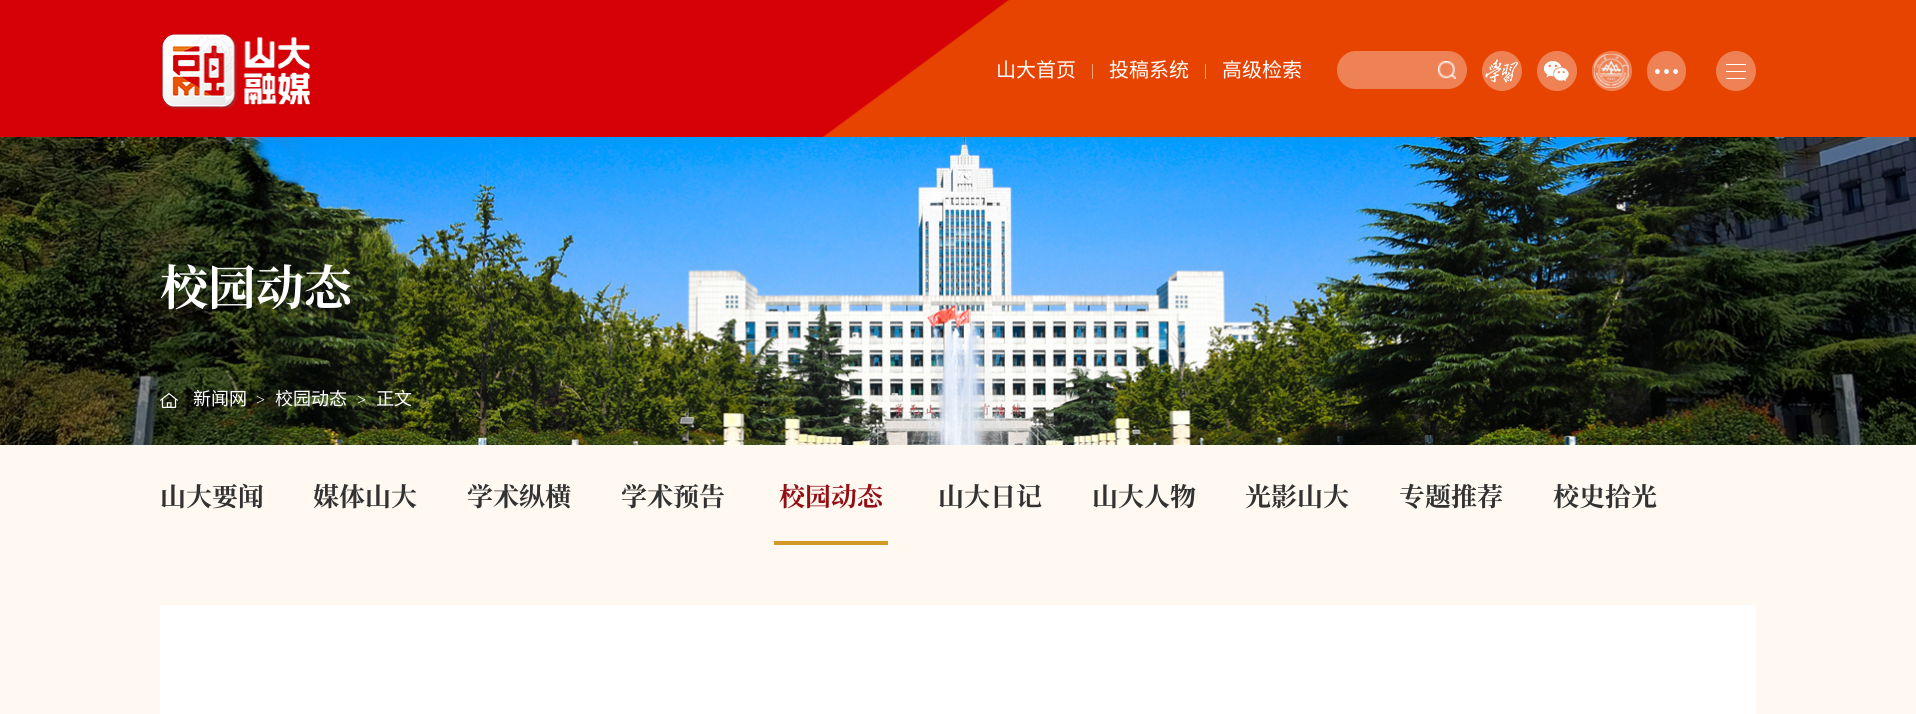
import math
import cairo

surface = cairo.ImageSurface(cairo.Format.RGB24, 1916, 714)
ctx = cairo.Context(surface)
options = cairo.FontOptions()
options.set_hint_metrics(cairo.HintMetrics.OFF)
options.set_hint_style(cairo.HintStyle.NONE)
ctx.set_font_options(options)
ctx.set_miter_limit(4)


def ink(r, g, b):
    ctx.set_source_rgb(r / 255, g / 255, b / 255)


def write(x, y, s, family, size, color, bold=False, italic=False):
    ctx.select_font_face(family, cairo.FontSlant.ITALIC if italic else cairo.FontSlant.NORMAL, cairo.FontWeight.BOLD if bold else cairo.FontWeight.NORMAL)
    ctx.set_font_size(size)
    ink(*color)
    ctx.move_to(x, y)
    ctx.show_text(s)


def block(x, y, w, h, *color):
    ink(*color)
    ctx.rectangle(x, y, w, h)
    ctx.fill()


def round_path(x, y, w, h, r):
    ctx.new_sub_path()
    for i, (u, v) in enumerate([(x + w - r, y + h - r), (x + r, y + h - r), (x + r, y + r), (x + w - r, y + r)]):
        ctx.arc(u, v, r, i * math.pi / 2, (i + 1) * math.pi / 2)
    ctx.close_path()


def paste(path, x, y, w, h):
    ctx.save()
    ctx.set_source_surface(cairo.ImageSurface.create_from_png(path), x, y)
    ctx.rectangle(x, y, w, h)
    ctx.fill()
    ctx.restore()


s1 = dict(family="Noto Sans CJK SC", size=20, color=(255, 255, 255))
s2 = dict(family="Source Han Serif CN", size=48, color=(255, 255, 255), bold=True)
s3 = dict(family="Noto Sans CJK SC", size=18, color=(255, 255, 255))
s4 = dict(family="Liberation Serif", size=16, color=(255, 255, 255))
s5 = dict(family="Source Han Serif CN", size=26, color=(50, 50, 50), bold=True)
s6 = dict(family="Source Han Serif CN", size=26, color=(146, 15, 21), bold=True)

ink(255, 255, 255)
ctx.paint()
paste("pic1.png", 0, 0, 1916, 137)
paste("pic2.png", 162, 34, 148, 76)
write(996, 77, "山大首页", **s1)
block(1092, 64, 1, 15, 243, 162, 128)
write(1109, 77, "投稿系统", **s1)
block(1205, 64, 1, 15, 243, 162, 128)
write(1222, 77, "高级检索", **s1)
ink(239, 130, 85)
round_path(1337, 51, 130, 38, 19)
ctx.fill()
paste("pic3.png", 1438, 61, 18, 18)
ctx.arc(1502, 71, 20, 0, 2 * math.pi)
ctx.fill()
paste("pic4.png", 1485, 59, 33, 24)
ctx.arc(1557, 71, 20, 0, 2 * math.pi)
ctx.fill()
paste("pic5.png", 1544, 61, 25, 20)
ctx.arc(1612, 71, 20, 0, 2 * math.pi)
ctx.fill()
paste("pic6.png", 1594, 54, 35, 34)
round_path(1647, 51, 39, 40, 19.5)
ctx.fill()
paste("pic7.png", 1655, 69, 23, 5)
ctx.arc(1736, 71, 20, 0, 2 * math.pi)
ctx.fill()
block(1726, 64, 20, 1, 255, 255, 255)
block(1726, 71, 20, 1, 255, 255, 255)
block(1726, 78, 20, 1, 255, 255, 255)
paste("pic8.png", 0, 137, 1916, 308)
write(160, 305, "校园动态", **s2)
paste("pic9.png", 160, 393, 18, 15)
write(193, 405, "新闻网", **s3)
write(256, 405, ">", **s4)
write(275, 405, "校园动态", **s3)
write(357, 405, ">", **s4)
write(376, 405, "正文", **s3)
block(0, 445, 1916, 269, 255, 249, 241)
write(160, 506, "山大要闻", **s5)
write(313, 506, "媒体山大", **s5)
write(467, 506, "学术纵横", **s5)
write(621, 506, "学术预告", **s5)
write(779, 506, "校园动态", **s6)
block(774, 541, 114, 4, 210, 152, 40)
write(938, 506, "山大日记", **s5)
write(1092, 506, "山大人物", **s5)
write(1245, 506, "光影山大", **s5)
write(1399, 506, "专题推荐", **s5)
write(1553, 506, "校史拾光", **s5)
block(160, 605, 1596, 109, 255, 255, 255)
surface.write_to_png("screenshot.png")
